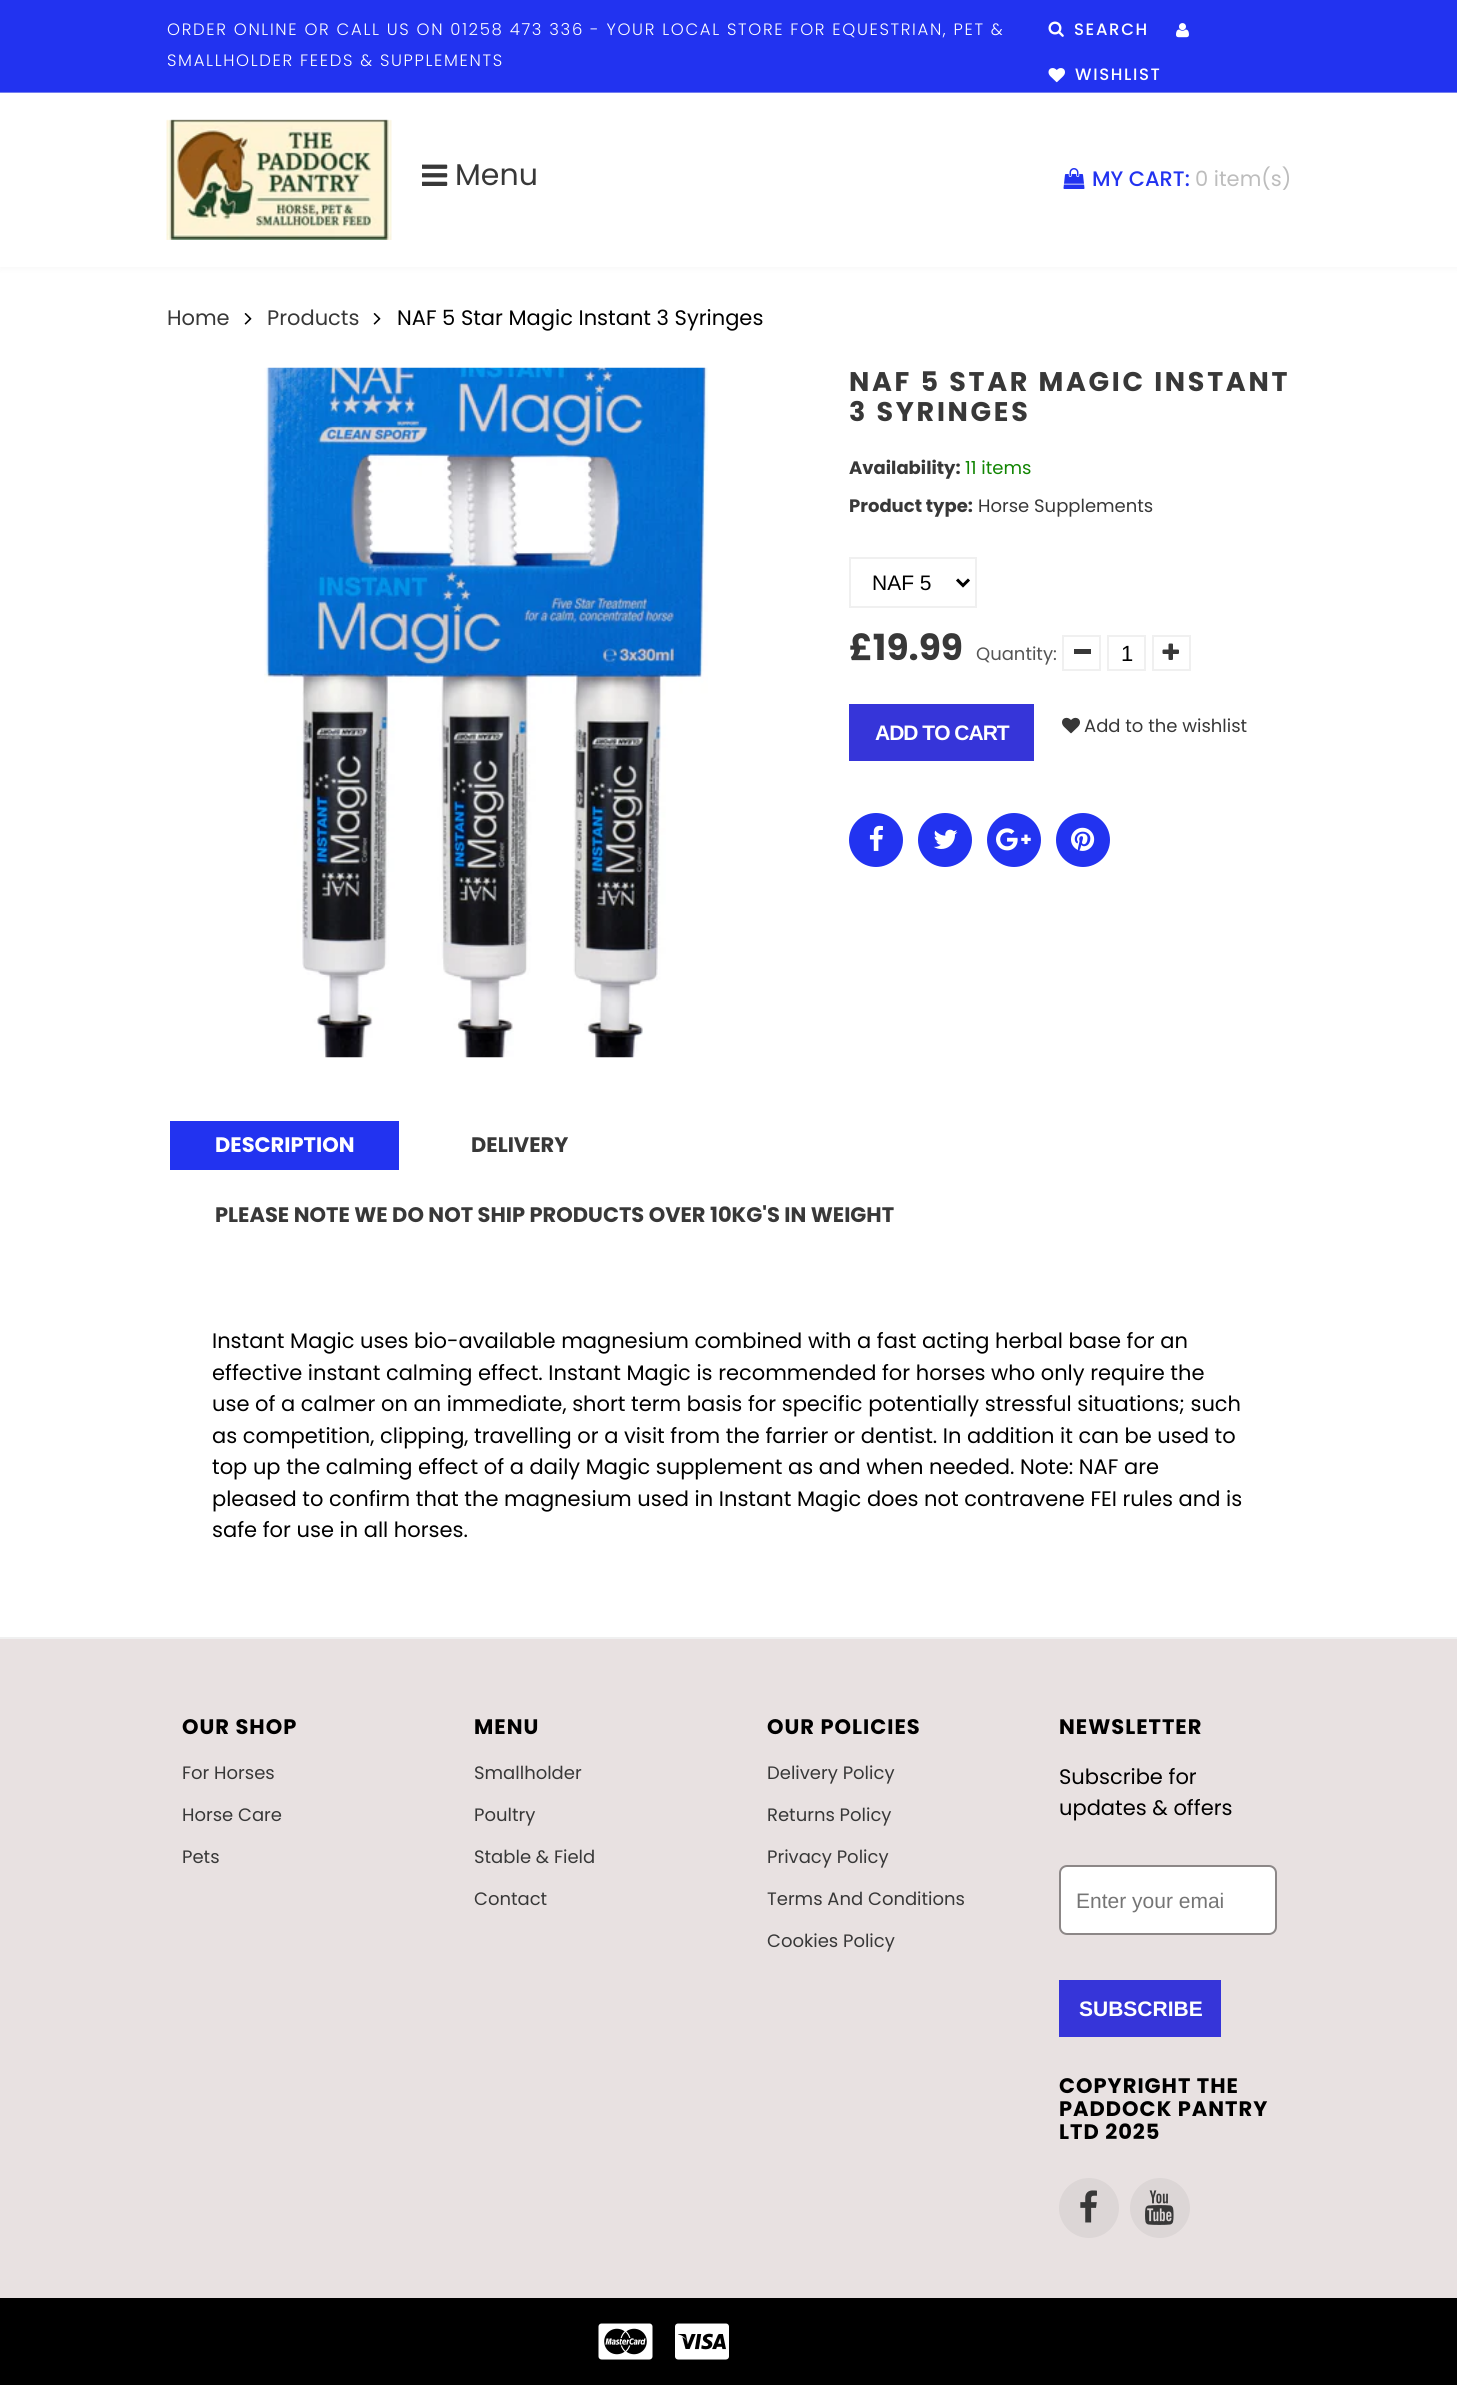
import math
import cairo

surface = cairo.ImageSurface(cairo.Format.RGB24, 1457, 2405)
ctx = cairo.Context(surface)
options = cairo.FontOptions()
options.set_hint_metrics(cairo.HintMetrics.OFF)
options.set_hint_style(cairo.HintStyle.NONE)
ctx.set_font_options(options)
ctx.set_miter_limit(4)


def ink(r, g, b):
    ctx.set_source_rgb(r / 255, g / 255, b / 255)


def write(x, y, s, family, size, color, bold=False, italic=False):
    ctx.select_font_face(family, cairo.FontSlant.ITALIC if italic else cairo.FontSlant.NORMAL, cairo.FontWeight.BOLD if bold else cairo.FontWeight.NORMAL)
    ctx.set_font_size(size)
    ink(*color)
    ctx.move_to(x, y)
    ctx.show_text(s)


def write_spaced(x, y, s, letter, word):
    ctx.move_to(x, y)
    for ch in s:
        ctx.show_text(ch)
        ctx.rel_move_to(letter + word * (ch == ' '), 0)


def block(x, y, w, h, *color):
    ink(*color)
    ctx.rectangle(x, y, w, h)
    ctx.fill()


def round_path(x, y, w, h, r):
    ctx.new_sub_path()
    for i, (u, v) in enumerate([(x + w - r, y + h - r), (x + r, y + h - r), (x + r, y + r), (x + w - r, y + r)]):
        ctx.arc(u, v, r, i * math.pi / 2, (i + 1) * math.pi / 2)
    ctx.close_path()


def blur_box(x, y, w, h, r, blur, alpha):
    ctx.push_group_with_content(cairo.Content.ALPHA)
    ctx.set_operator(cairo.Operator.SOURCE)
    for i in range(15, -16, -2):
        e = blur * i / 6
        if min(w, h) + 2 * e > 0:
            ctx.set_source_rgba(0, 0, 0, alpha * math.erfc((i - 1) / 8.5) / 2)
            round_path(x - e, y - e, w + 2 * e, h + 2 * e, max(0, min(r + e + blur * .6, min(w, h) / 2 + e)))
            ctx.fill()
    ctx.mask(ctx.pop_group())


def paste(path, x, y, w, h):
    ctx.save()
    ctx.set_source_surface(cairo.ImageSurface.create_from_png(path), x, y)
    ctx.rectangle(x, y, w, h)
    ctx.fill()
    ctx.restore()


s1 = dict(family="Poppins", size=30, color=(56, 56, 56))
s2 = dict(family="Poppins Medium", size=21, color=(34, 51, 240))
s3 = dict(family="Poppins", size=21, color=(189, 189, 189))
s4 = dict(family="Poppins", size=21, color=(56, 56, 56))
s5 = dict(family="Poppins", size=21, color=(0, 0, 0))
s6 = dict(family="Poppins", size=18, color=(56, 56, 56), bold=True)
s7 = dict(family="Poppins", size=18, color=(17, 133, 2))
s8 = dict(family="Poppins", size=18, color=(56, 56, 56))
s9 = dict(family="Liberation Sans", size=21, color=(0, 0, 0))
s10 = dict(family="Poppins", size=36, color=(56, 56, 56), bold=True)
s11 = dict(family="Poppins", size=18, color=(85, 85, 85))
s12 = dict(family="Liberation Sans", size=22, color=(0, 0, 0))
s13 = dict(family="Poppins", size=21, color=(255, 255, 255), bold=True)
s14 = dict(family="Poppins", size=21, color=(56, 56, 56), bold=True)
s15 = dict(family="Liberation Sans", size=21, color=(117, 117, 117))
s16 = dict(family="Liberation Sans", size=21, color=(255, 255, 255), bold=True)

ink(255, 255, 255)
ctx.paint()
ink(0, 0, 0)
blur_box(0, 0, 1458, 267, 0, 4, 0.05)
block(0, 0, 1457, 92, 34, 51, 240)
block(0, 92, 1457, 1, 116, 127, 240)
ctx.select_font_face("Poppins Light")
ctx.set_font_size(16.5)
ink(255, 255, 255)
write_spaced(167, 35, "ORDER ONLINE OR CALL US ON 01258 473 336 - YOUR LOCAL STORE FOR EQUESTRIAN, PET &", 1.65, 0)
write_spaced(167, 66, "SMALLHOLDER FEEDS & SUPPLEMENTS", 1.65, 0)
paste("pic1.png", 1048, 21, 16, 16)
ctx.select_font_face("Poppins Medium")
write_spaced(1074, 35, "SEARCH", 1.65, 0)
paste("pic2.png", 1176, 23, 13, 15)
paste("pic3.png", 1048, 68, 17, 15)
write_spaced(1075, 80, "WISHLIST", 1.65, 0)
block(0, 93, 1457, 174, 255, 255, 255)
paste("pic4.png", 166, 119, 226, 121)
paste("pic5.png", 422, 164, 26, 22)
write(455, 185, "Menu", **s1)
paste("pic6.png", 1063, 168, 22, 21)
write(1092, 186, "MY CART:", **s2)
write(1195, 186, "0 item(s)", **s3)
write(167, 325, "Home", **s4)
paste("pic7.png", 244, 313, 8, 12)
write(267, 325, "Products", **s4)
paste("pic7.png", 373, 313, 8, 12)
write(397, 325, "NAF 5 Star Magic Instant 3 Syringes", **s5)
paste("pic8.png", 264, 367, 444, 691)
ctx.select_font_face("Poppins", cairo.FontSlant.NORMAL, cairo.FontWeight.BOLD)
ctx.set_font_size(27)
ink(56, 56, 56)
write_spaced(849, 391, "NAF 5 STAR MAGIC INSTANT", 2.7, 0)
write_spaced(849, 421, "3 SYRINGES", 2.7, 0)
write(849, 474, "Availability:", **s6)
write(965, 474, "11 items", **s7)
write(849, 512, "Product type:", **s6)
write(978, 512, "Horse Supplements", **s8)
ctx.rectangle(850, 558, 126, 49)
ink(240, 240, 240)
ctx.stroke()
ctx.new_path()
ctx.move_to(957, 579.5)
ctx.line_to(963, 585.5)
ctx.line_to(969, 579.5)
ink(0, 0, 0)
ctx.set_line_width(3)
ctx.stroke()
write(872, 590, "NAF 5", **s9)
write(849, 660, "£19.99", **s10)
write(976, 660, "Quantity:", **s11)
ctx.rectangle(1063, 636, 37, 34)
ink(240, 240, 240)
ctx.set_line_width(2)
ctx.stroke()
block(1074, 649, 17, 5, 56, 56, 56)
ctx.rectangle(1108, 636, 37, 34)
ink(240, 240, 240)
ctx.stroke()
write(1121, 661, "1", **s12)
ctx.rectangle(1153, 636, 37, 34)
ink(240, 240, 240)
ctx.stroke()
paste("pic9.png", 1162, 643, 17, 17)
block(849, 704, 185, 57, 54, 53, 217)
ctx.select_font_face("Liberation Sans", cairo.FontSlant.NORMAL, cairo.FontWeight.BOLD)
ctx.set_font_size(21)
ink(255, 255, 255)
write_spaced(875, 740, "ADD TO CART", -1, 0)
paste("pic10.png", 1062, 717, 18, 17)
write(1084, 732, "Add to the wishlist", **s8)
ink(34, 51, 240)
ctx.new_path()
ctx.arc(876, 840, 27, 0, 2 * math.pi)
ctx.fill()
paste("pic11.png", 869, 825, 14, 26)
ctx.arc(945, 840, 27, 0, 2 * math.pi)
ctx.fill()
paste("pic12.png", 933, 829, 25, 20)
ctx.arc(1014, 840, 27, 0, 2 * math.pi)
ctx.fill()
paste("pic13.png", 996, 828, 35, 23)
ctx.arc(1083, 840, 27, 0, 2 * math.pi)
ctx.fill()
paste("pic14.png", 1071, 827, 24, 24)
block(170, 1121, 229, 49, 34, 51, 240)
write(215, 1152, "DESCRIPTION", **s13)
write(471, 1152, "DELIVERY", **s14)
write(215, 1222, "PLEASE NOTE WE DO NOT SHIP PRODUCTS OVER 10KG'S IN WEIGHT", **s14)
write(212, 1348, "Instant Magic uses bio-available magnesium combined with a fast acting herbal base for an", **s5)
write(212, 1380, "effective instant calming effect. Instant Magic is recommended for horses who only require the", **s5)
write(212, 1411, "use of a calmer on an immediate, short term basis for specific potentially stressful situations; such", **s5)
write(212, 1443, "as competition, clipping, travelling or a visit from the farrier or dentist. In addition it can be used to", **s5)
write(212, 1474, "top up the calming effect of a daily Magic supplement as and when needed. Note: NAF are", **s5)
write(212, 1506, "pleased to confirm that the magnesium used in Instant Magic does not contravene FEI rules and is", **s5)
write(212, 1537, "safe for use in all horses.", **s5)
block(0, 1639, 1457, 659, 232, 225, 225)
block(0, 1637, 1457, 2, 240, 240, 240)
ctx.select_font_face("Poppins", cairo.FontSlant.NORMAL, cairo.FontWeight.BOLD)
ink(0, 0, 0)
write_spaced(182, 1734, "OUR SHOP", 1, 0)
write(182, 1779, "For Horses", **s8)
write(182, 1821, "Horse Care", **s8)
write(182, 1863, "Pets", **s8)
ctx.select_font_face("Poppins", cairo.FontSlant.NORMAL, cairo.FontWeight.BOLD)
ctx.set_font_size(21)
ink(0, 0, 0)
write_spaced(474, 1734, "MENU", 1, 0)
write(474, 1779, "Smallholder", **s8)
write(474, 1821, "Poultry", **s8)
write(474, 1863, "Stable & Field", **s8)
write(474, 1905, "Contact", **s8)
ctx.select_font_face("Poppins", cairo.FontSlant.NORMAL, cairo.FontWeight.BOLD)
ctx.set_font_size(21)
ink(0, 0, 0)
write_spaced(767, 1734, "OUR POLICIES", 1, 0)
write(767, 1779, "Delivery Policy", **s8)
write(767, 1821, "Returns Policy", **s8)
write(767, 1863, "Privacy Policy", **s8)
write(767, 1905, "Terms And Conditions", **s8)
write(767, 1947, "Cookies Policy", **s8)
ctx.select_font_face("Poppins", cairo.FontSlant.NORMAL, cairo.FontWeight.BOLD)
ctx.set_font_size(21)
ink(0, 0, 0)
write_spaced(1059, 1734, "NEWSLETTER", 1, 0)
write(1059, 1784, "Subscribe for", **s5)
write(1059, 1815, "updates & offers", **s5)
ink(255, 255, 255)
round_path(1060, 1866, 216, 68, 7)
ctx.fill_preserve()
ink(140, 135, 135)
ctx.stroke()
write(1076, 1908, "Enter your emai", **s15)
block(1059, 1980, 162, 57, 54, 53, 217)
write(1079, 2016, "SUBSCRIBE", **s16)
ctx.select_font_face("Poppins", cairo.FontSlant.NORMAL, cairo.FontWeight.BOLD)
ink(0, 0, 0)
write_spaced(1059, 2093, "COPYRIGHT THE", 1, 0)
write_spaced(1059, 2116, "PADDOCK PANTRY", 1, 0)
write_spaced(1059, 2139, "LTD 2025", 1, 0)
ink(220, 214, 214)
ctx.new_path()
ctx.arc(1089, 2208, 30, 0, 2 * math.pi)
ctx.fill()
paste("pic15.png", 1080, 2190, 17, 33)
ctx.arc(1160, 2208, 30, 0, 2 * math.pi)
ctx.fill()
paste("pic16.png", 1145, 2190, 29, 35)
block(0, 2298, 1457, 87, 0, 0, 0)
paste("pic17.png", 598, 2323, 55, 37)
paste("pic18.png", 675, 2323, 54, 37)
surface.write_to_png("screenshot.png")
